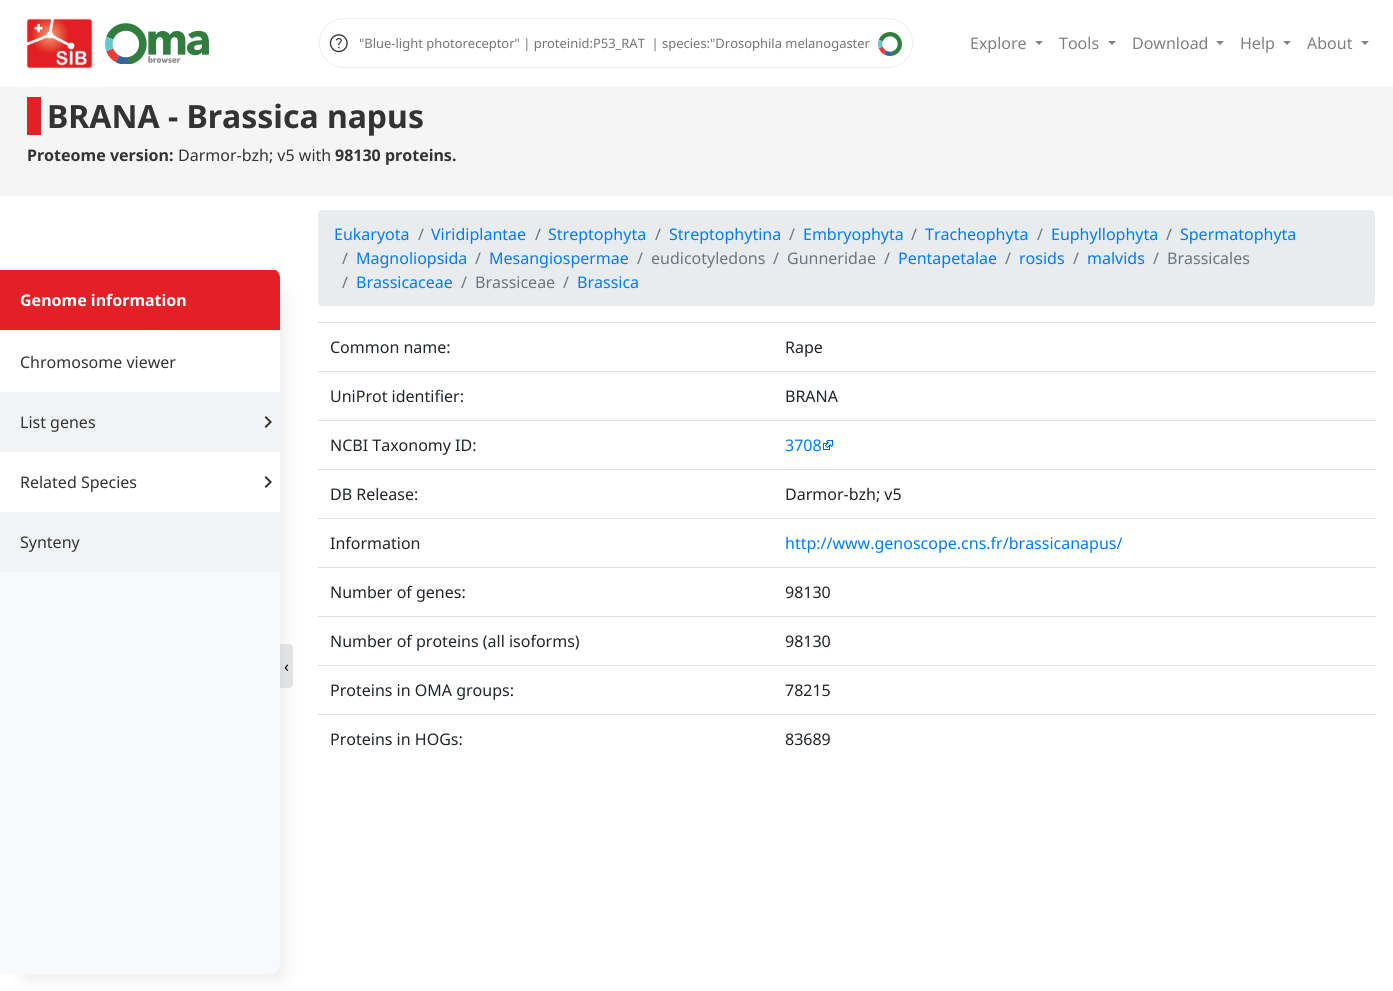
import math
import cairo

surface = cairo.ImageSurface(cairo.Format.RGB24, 1393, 991)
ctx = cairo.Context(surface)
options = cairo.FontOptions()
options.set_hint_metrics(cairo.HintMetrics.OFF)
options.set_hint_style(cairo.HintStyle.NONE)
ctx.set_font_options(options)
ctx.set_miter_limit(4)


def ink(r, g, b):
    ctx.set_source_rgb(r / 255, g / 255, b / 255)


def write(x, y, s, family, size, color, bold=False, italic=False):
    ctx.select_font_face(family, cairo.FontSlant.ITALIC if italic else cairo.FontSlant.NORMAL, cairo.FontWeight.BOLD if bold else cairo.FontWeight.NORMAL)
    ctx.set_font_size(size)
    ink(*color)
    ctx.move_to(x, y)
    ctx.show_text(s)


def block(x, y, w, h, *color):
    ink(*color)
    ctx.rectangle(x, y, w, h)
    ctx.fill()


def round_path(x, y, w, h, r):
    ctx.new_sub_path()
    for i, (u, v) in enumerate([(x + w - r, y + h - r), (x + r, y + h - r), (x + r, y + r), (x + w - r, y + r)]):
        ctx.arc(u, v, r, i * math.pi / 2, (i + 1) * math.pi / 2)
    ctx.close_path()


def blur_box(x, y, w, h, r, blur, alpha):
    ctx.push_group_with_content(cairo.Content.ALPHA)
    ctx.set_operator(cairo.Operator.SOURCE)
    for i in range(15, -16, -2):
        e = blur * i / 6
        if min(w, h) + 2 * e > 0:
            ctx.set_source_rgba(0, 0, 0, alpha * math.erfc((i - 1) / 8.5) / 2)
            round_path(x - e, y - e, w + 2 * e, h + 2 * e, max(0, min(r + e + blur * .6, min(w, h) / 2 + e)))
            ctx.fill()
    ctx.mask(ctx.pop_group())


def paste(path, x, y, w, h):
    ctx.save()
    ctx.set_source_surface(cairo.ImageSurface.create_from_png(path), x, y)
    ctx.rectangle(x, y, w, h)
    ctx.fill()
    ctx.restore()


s1 = dict(family="Noto Sans", size=12.95, color=(117, 117, 117))
s2 = dict(family="Noto Sans", size=16, color=(128, 128, 128))
s3 = dict(family="Noto Sans", size=32, color=(51, 51, 51), bold=True)
s4 = dict(family="Noto Sans", size=16, color=(51, 51, 51), bold=True)
s5 = dict(family="Noto Sans", size=16, color=(51, 51, 51))
s6 = dict(family="Noto Sans", size=16, color=(255, 255, 255), bold=True)
s7 = dict(family="Noto Sans", size=16, color=(0, 123, 255))
s8 = dict(family="Noto Sans", size=16, color=(108, 117, 125))
s9 = dict(family="Noto Sans", size=16, color=(33, 37, 41))
s10 = dict(family="Noto Sans", size=16, color=(0, 0, 0))

ink(255, 255, 255)
ctx.paint()
ink(0, 0, 0)
blur_box(-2, 86, 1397, 110, 0, 1, 0.05)
block(0, 85, 1393, 2, 255, 255, 255)
paste("pic1.png", 26, 18, 67, 51)
paste("pic2.png", 105, 23, 104, 41)
round_path(319.5, 18.5, 593, 49, 24.5)
ink(238, 238, 238)
ctx.set_line_width(1)
ctx.stroke()
paste("pic3.png", 329, 34, 19, 19)
write(359, 48, "\"Blue-light photoreceptor\" | proteinid:P53_RAT  | species:\"Drosophila melanogaster", **s1)
paste("pic4.png", 878, 32, 24, 24)
write(970, 49, "Explore", **s2)
ctx.new_path()
ctx.move_to(1035, 41)
ctx.line_to(1043, 41)
ctx.line_to(1039, 45)
ctx.close_path()
ctx.fill()
write(1059, 49, "Tools", **s2)
ctx.new_path()
ctx.move_to(1108, 41)
ctx.line_to(1116, 41)
ctx.line_to(1112, 45)
ctx.close_path()
ctx.fill()
write(1132, 49, "Download", **s2)
ctx.new_path()
ctx.move_to(1216, 41)
ctx.line_to(1224, 41)
ctx.line_to(1220, 45)
ctx.close_path()
ctx.fill()
write(1240, 49, "Help", **s2)
ctx.new_path()
ctx.move_to(1283, 41)
ctx.line_to(1291, 41)
ctx.line_to(1287, 45)
ctx.close_path()
ctx.fill()
write(1307, 49, "About", **s2)
ctx.new_path()
ctx.move_to(1361, 41)
ctx.line_to(1369, 41)
ctx.line_to(1365, 45)
ctx.close_path()
ctx.fill()
block(0, 88, 1393, 105, 245, 245, 245)
block(27, 97, 14, 38, 227, 32, 38)
write(47, 128, "BRANA - Brassica napus", **s3)
write(27, 161, "Proteome version:", **s4)
write(178, 161, "Darmor-bzh; v5 with", **s5)
write(335, 161, "98130 proteins.", **s4)
ink(230, 231, 232)
ctx.new_path()
ctx.move_to(280, 644)
ctx.line_to(289, 644)
ctx.curve_to(291, 644, 293, 646, 293, 648)
ctx.line_to(293, 684)
ctx.curve_to(293, 686, 291, 688, 289, 688)
ctx.line_to(280, 688)
ctx.close_path()
ctx.fill()
ink(0, 0, 0)
blur_box(25, 294, 256, 682, 0, 10, 0.1)
ink(248, 249, 250)
ctx.new_path()
ctx.move_to(0, 268)
ctx.line_to(270, 268)
ctx.curve_to(275.5, 268, 280, 272.5, 280, 278)
ctx.line_to(280, 964)
ctx.curve_to(280, 969.5, 275.5, 974, 270, 974)
ctx.line_to(0, 974)
ctx.close_path()
ctx.fill()
ink(227, 32, 38)
ctx.new_path()
ctx.move_to(0, 268)
ctx.line_to(270, 268)
ctx.curve_to(275.5, 268, 280, 272.5, 280, 278)
ctx.line_to(280, 332)
ctx.line_to(0, 332)
ctx.close_path()
ctx.fill()
ctx.save()
ctx.new_path()
ctx.move_to(0, 268)
ctx.line_to(270, 268)
ctx.curve_to(275.5, 268, 280, 272.5, 280, 278)
ctx.line_to(280, 964)
ctx.curve_to(280, 969.5, 275.5, 974, 270, 974)
ctx.line_to(0, 974)
ctx.close_path()
ctx.clip()
block(0, 268, 280, 2, 248, 249, 250)
ctx.restore()
block(0, 330, 280, 2, 248, 249, 250)
write(20, 306, "Genome information", **s6)
block(0, 332, 280, 60, 255, 255, 255)
write(20, 368, "Chromosome viewer", **s5)
block(0, 392, 280, 60, 241, 243, 244)
write(20, 428, "List genes", **s5)
paste("pic5.png", 264, 416, 8, 12)
block(0, 452, 280, 60, 255, 255, 255)
write(20, 488, "Related Species", **s5)
paste("pic6.png", 264, 476, 8, 12)
block(0, 512, 280, 60, 241, 243, 244)
write(20, 548, "Synteny", **s5)
ink(233, 236, 239)
round_path(318, 210, 1057, 96, 4)
ctx.fill()
write(334, 240, "Eukaryota", **s7)
write(418, 240, "/", **s8)
write(431, 240, "Viridiplantae", **s7)
write(535, 240, "/", **s8)
write(548, 240, "Streptophyta", **s7)
write(655, 240, "/", **s8)
write(669, 240, "Streptophytina", **s7)
write(789, 240, "/", **s8)
write(803, 240, "Embryophyta", **s7)
write(911, 240, "/", **s8)
write(925, 240, "Tracheophyta", **s7)
write(1037, 240, "/", **s8)
write(1051, 240, "Euphyllophyta", **s7)
write(1166, 240, "/", **s8)
write(1180, 240, "Spermatophyta", **s7)
write(342, 264, "/", **s8)
write(356, 264, "Magnoliopsida", **s7)
write(475, 264, "/", **s8)
write(489, 264, "Mesangiospermae", **s7)
write(637, 264, "/", **s8)
write(651, 264, "eudicotyledons", **s8)
write(773, 264, "/", **s8)
write(787, 264, "Gunneridae", **s8)
write(884, 264, "/", **s8)
write(898, 264, "Pentapetalae", **s7)
write(1005, 264, "/", **s8)
write(1019, 264, "rosids", **s7)
write(1073, 264, "/", **s8)
write(1087, 264, "malvids", **s7)
write(1153, 264, "/", **s8)
write(1167, 264, "Brassicales", **s8)
write(342, 288, "/", **s8)
write(356, 288, "Brassicaceae", **s7)
write(461, 288, "/", **s8)
write(475, 288, "Brassiceae", **s8)
write(563, 288, "/", **s8)
write(577, 288, "Brassica", **s7)
write(330, 353, "Common name:", **s9)
block(318, 322, 1058, 1, 222, 226, 230)
write(785, 353, "Rape", **s9)
write(330, 402, "UniProt identifier:", **s9)
block(318, 371, 1058, 1, 222, 226, 230)
write(785, 402, "BRANA", **s9)
write(330, 451, "NCBI Taxonomy ID:", **s9)
block(318, 420, 1058, 1, 222, 226, 230)
write(785, 451, "3708", **s7)
paste("pic7.png", 823, 440, 10, 10)
write(330, 500, "DB Release:", **s9)
block(318, 469, 1058, 1, 222, 226, 230)
write(785, 500, "Darmor-bzh; v5", **s9)
write(330, 549, "Information", **s9)
block(318, 518, 1058, 1, 222, 226, 230)
write(785, 549, "http://www.genoscope.cns.fr/brassicanapus/", **s7)
write(330, 598, "Number of genes:", **s9)
block(318, 567, 1058, 1, 222, 226, 230)
write(785, 598, "98130", **s9)
write(330, 647, "Number of proteins (all isoforms)", **s9)
block(318, 616, 1058, 1, 222, 226, 230)
write(785, 647, "98130", **s9)
write(330, 696, "Proteins in OMA groups:", **s9)
block(318, 665, 1058, 1, 222, 226, 230)
write(785, 696, "78215", **s9)
write(330, 745, "Proteins in HOGs:", **s9)
block(318, 714, 1058, 1, 222, 226, 230)
write(785, 745, "83689", **s9)
write(284, 672, "‹", **s10)
surface.write_to_png("screenshot.png")
